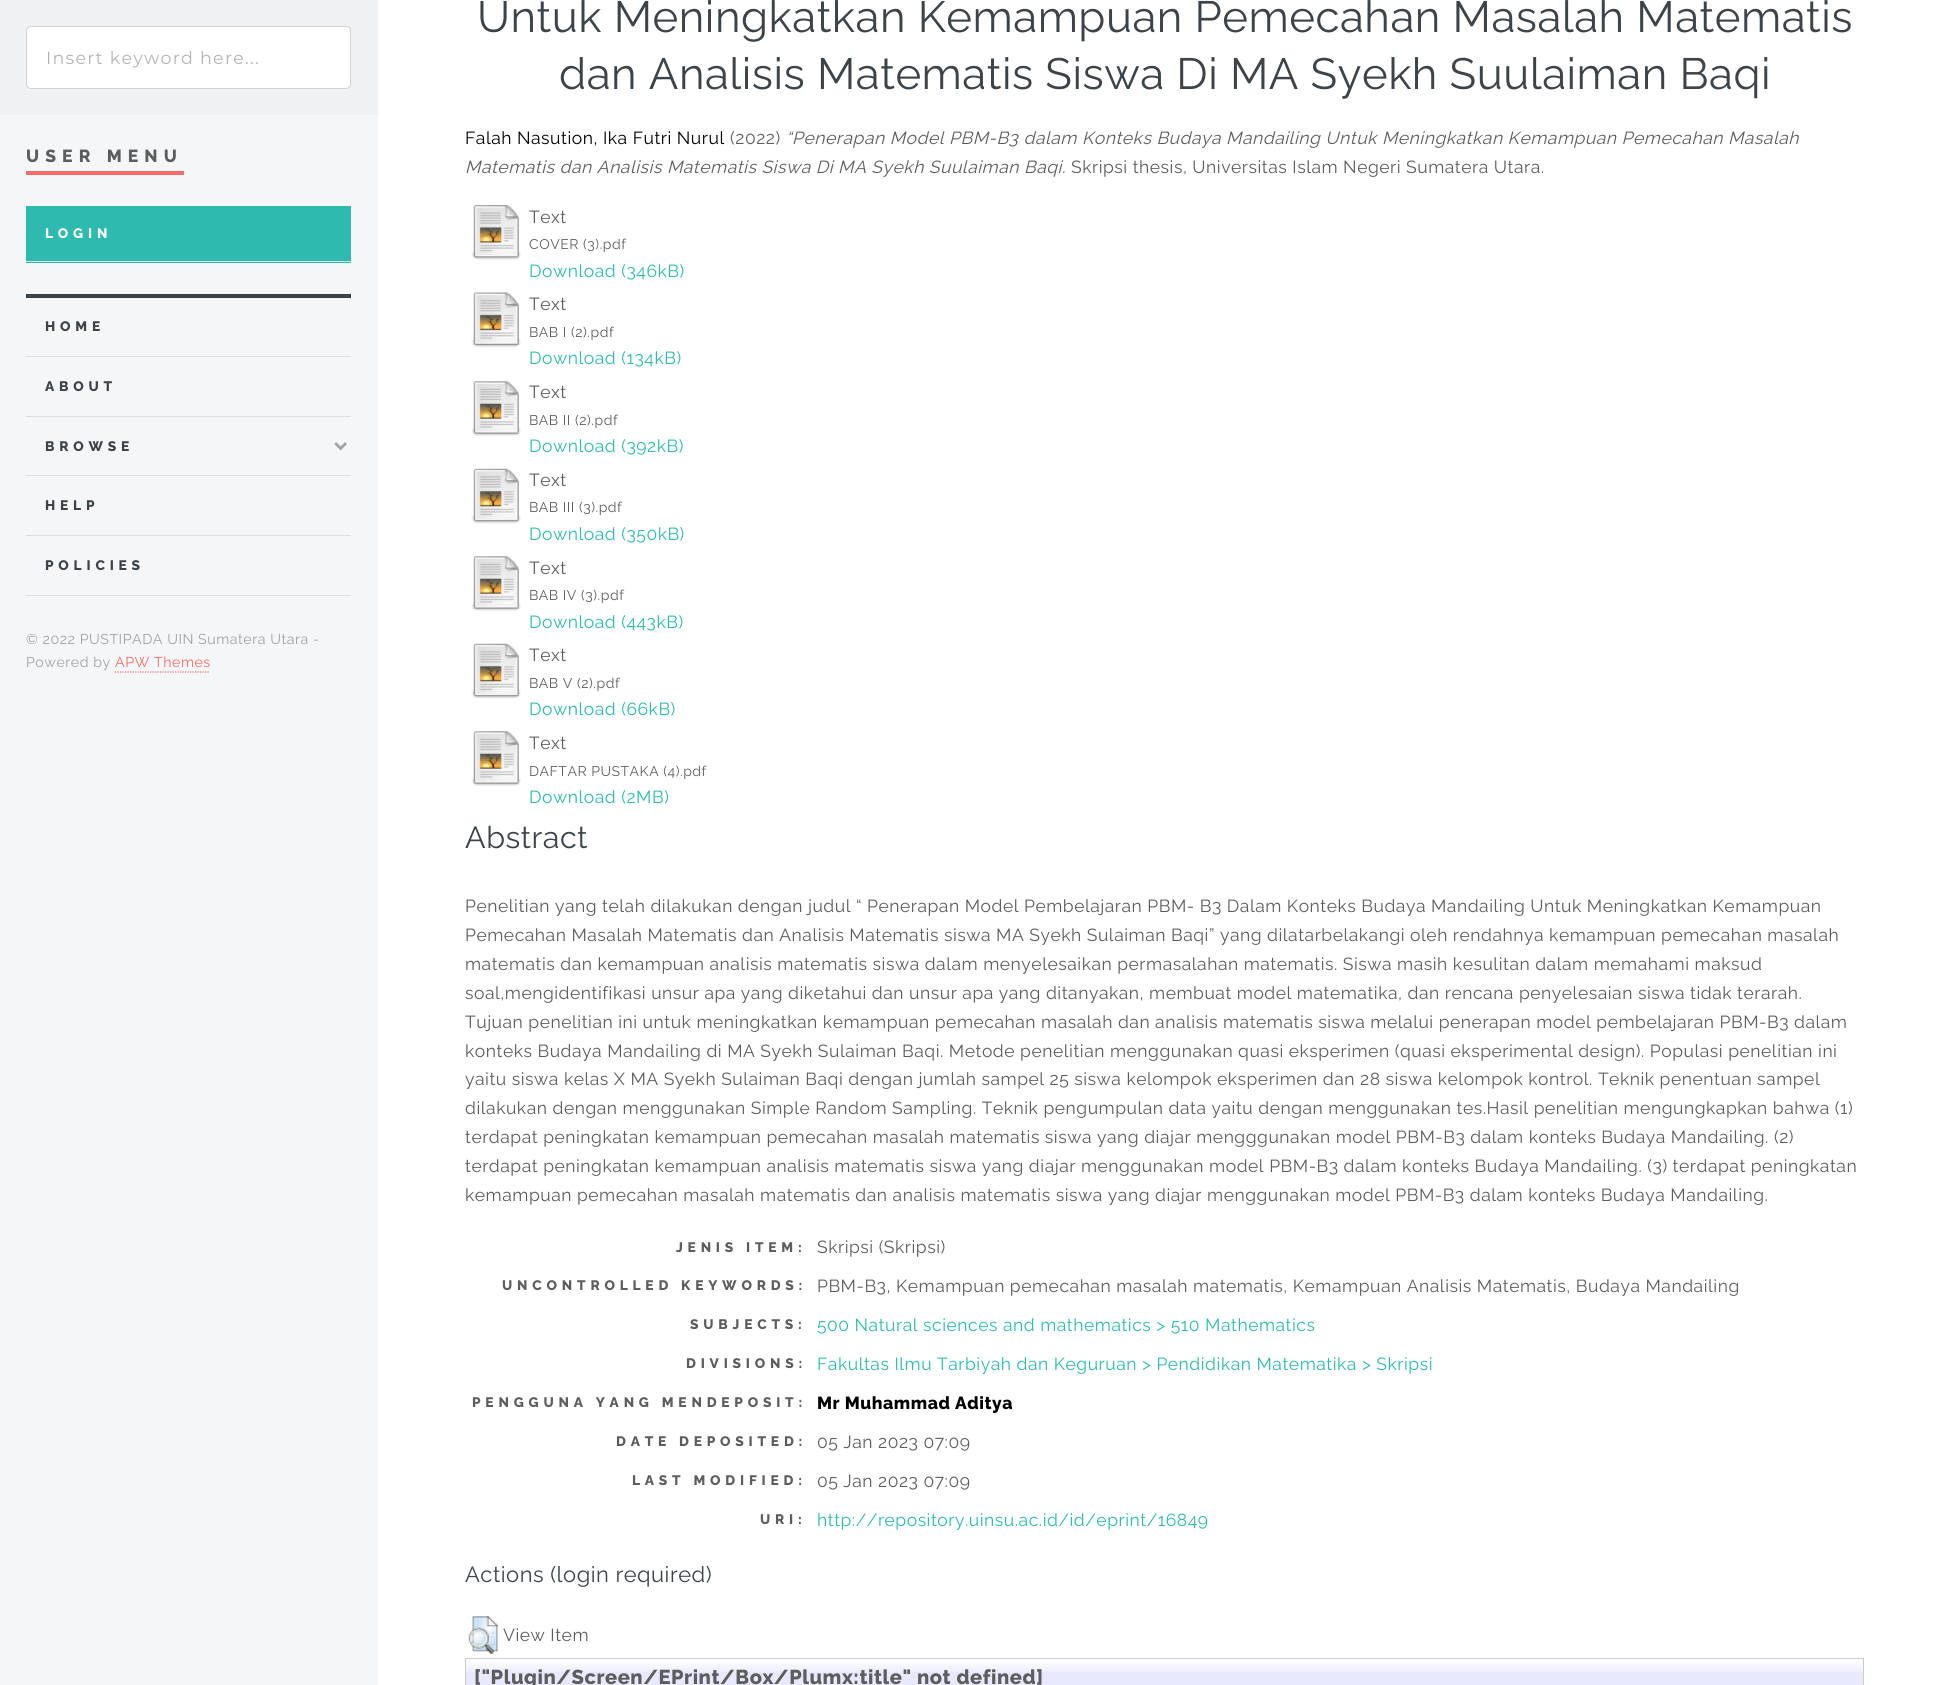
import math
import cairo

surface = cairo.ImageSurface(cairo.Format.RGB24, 1951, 1685)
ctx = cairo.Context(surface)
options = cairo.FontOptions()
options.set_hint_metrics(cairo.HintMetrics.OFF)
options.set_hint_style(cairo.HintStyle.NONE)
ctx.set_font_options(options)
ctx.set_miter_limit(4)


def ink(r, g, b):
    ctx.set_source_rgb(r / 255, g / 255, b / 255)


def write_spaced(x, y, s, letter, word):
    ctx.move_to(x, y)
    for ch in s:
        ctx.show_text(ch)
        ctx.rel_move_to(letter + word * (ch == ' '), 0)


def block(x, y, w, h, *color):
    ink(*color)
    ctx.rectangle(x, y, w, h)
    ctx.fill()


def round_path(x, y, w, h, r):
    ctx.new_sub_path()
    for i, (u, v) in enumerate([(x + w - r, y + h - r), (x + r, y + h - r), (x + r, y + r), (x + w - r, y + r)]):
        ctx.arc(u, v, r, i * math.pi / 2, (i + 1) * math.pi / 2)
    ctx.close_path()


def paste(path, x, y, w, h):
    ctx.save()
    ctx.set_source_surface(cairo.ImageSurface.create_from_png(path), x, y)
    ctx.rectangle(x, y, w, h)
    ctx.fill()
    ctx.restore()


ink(255, 255, 255)
ctx.paint()
block(0, 115, 378, 1570, 245, 246, 247)
block(0, 0, 378, 115, 239, 241, 242)
ink(255, 255, 255)
round_path(26.5, 26.5, 324, 62, 4.5)
ctx.fill_preserve()
ink(210, 210, 210)
ctx.set_line_width(1)
ctx.stroke()
ctx.select_font_face("Montserrat")
ctx.set_font_size(17.5)
ink(181, 181, 181)
write_spaced(46, 64, "Insert keyword here...", 1.25, 0)
block(26, 171, 158, 4, 245, 106, 106)
ctx.select_font_face("Raleway ExtraBold")
ink(93, 93, 93)
write_spaced(26, 162, "USER MENU", 6.1, 0)
block(26, 206, 325, 57, 46, 186, 174)
block(26, 261, 325, 1, 219, 223, 225)
ctx.set_font_size(13.75)
ink(255, 255, 255)
write_spaced(45, 238, "LOGIN", 4.8, 0)
block(26, 294, 325, 4, 61, 68, 73)
write_spaced(45, 331, "HOME", 4.8, 0)
block(26, 356, 325, 1, 219, 223, 225)
ink(61, 68, 73)
write_spaced(45, 391, "ABOUT", 4.8, 0)
block(26, 416, 325, 1, 219, 223, 225)
ink(61, 68, 73)
write_spaced(45, 451, "BROWSE", 4.8, 0)
paste("pic1.png", 334, 442, 13, 9)
block(26, 475, 325, 1, 219, 223, 225)
ink(61, 68, 73)
write_spaced(45, 510, "HELP", 4.8, 0)
block(26, 535, 325, 1, 219, 223, 225)
block(26, 595, 325, 1, 219, 223, 225)
ink(61, 68, 73)
write_spaced(45, 570, "POLICIES", 4.8, 0)
ctx.select_font_face("Raleway")
ctx.set_font_size(14.2)
ink(159, 163, 166)
write_spaced(26, 644, "© 2022 PUSTIPADA UIN Sumatera Utara -", 0.53, 0)
write_spaced(26, 667, "Powered by", 0.53, 0)
ink(245, 106, 106)
write_spaced(115, 667, "APW Themes", 0.53, 0)
ctx.new_path()
ctx.move_to(115, 672)
ctx.line_to(210, 672)
ctx.set_line_width(1.2)
ctx.set_dash([1.25, 1.25])
ctx.stroke()
ctx.set_font_size(43.75)
ink(61, 68, 73)
write_spaced(477, 32, "Untuk Meningkatkan Kemampuan Pemecahan Masalah Matematis", 0.53, 0)
write_spaced(559, 89, "dan Analisis Matematis Siswa Di MA Syekh Suulaiman Baqi", 0.53, 0)
ctx.set_font_size(17.5)
ink(0, 0, 0)
write_spaced(465, 144, "Falah Nasution, Ika Futri Nurul", 0.53, 0)
ink(93, 93, 93)
write_spaced(730, 144, "(2022)", 0.53, 0)
ctx.select_font_face("Raleway", cairo.FontSlant.ITALIC)
write_spaced(786, 144, "“Penerapan Model PBM-B3 dalam Konteks Budaya Mandailing Untuk Meningkatkan Kemampuan Pemecahan Masalah", 0.53, 0)
write_spaced(465, 173, "Matematis dan Analisis Matematis Siswa Di MA Syekh Suulaiman Baqi.", 0.53, 0)
ctx.select_font_face("Raleway")
write_spaced(1071, 173, "Skripsi thesis, Universitas Islam Negeri Sumatera Utara.", 0.53, 0)
paste("pic2.png", 471, 205, 50, 55)
write_spaced(529, 223, "Text", 0.53, 0)
ctx.set_font_size(14)
write_spaced(529, 249, "COVER (3).pdf", 0.53, 0)
ctx.set_font_size(17.5)
ink(46, 186, 174)
write_spaced(529, 277, "Download (346kB)", 0.53, 0)
paste("pic3.png", 471, 292, 50, 56)
ink(93, 93, 93)
write_spaced(529, 310, "Text", 0.53, 0)
ctx.set_font_size(14)
write_spaced(529, 337, "BAB I (2).pdf", 0.53, 0)
ctx.set_font_size(17.5)
ink(46, 186, 174)
write_spaced(529, 364, "Download (134kB)", 0.53, 0)
paste("pic4.png", 471, 381, 50, 55)
ink(93, 93, 93)
write_spaced(529, 398, "Text", 0.53, 0)
ctx.set_font_size(14)
write_spaced(529, 425, "BAB II (2).pdf", 0.53, 0)
ctx.set_font_size(17.5)
ink(46, 186, 174)
write_spaced(529, 452, "Download (392kB)", 0.53, 0)
paste("pic5.png", 471, 468, 50, 56)
ink(93, 93, 93)
write_spaced(529, 486, "Text", 0.53, 0)
ctx.set_font_size(14)
write_spaced(529, 512, "BAB III (3).pdf", 0.53, 0)
ctx.set_font_size(17.5)
ink(46, 186, 174)
write_spaced(529, 540, "Download (350kB)", 0.53, 0)
paste("pic4.png", 471, 556, 50, 55)
ink(93, 93, 93)
write_spaced(529, 574, "Text", 0.53, 0)
ctx.set_font_size(14)
write_spaced(529, 600, "BAB IV (3).pdf", 0.53, 0)
ctx.set_font_size(17.5)
ink(46, 186, 174)
write_spaced(529, 628, "Download (443kB)", 0.53, 0)
paste("pic5.png", 471, 643, 50, 56)
ink(93, 93, 93)
write_spaced(529, 661, "Text", 0.53, 0)
ctx.set_font_size(14)
write_spaced(529, 688, "BAB V (2).pdf", 0.53, 0)
ctx.set_font_size(17.5)
ink(46, 186, 174)
write_spaced(529, 715, "Download (66kB)", 0.53, 0)
paste("pic4.png", 471, 731, 50, 55)
ink(93, 93, 93)
write_spaced(529, 749, "Text", 0.53, 0)
ctx.set_font_size(14)
write_spaced(529, 776, "DAFTAR PUSTAKA (4).pdf", 0.53, 0)
ctx.set_font_size(17.5)
ink(46, 186, 174)
write_spaced(529, 803, "Download (2MB)", 0.53, 0)
ctx.set_font_size(30.5)
ink(61, 68, 73)
write_spaced(465, 848, "Abstract", 0.53, 0)
ctx.set_font_size(17.5)
ink(93, 93, 93)
write_spaced(465, 912, "Penelitian yang telah dilakukan dengan judul “ Penerapan Model Pembelajaran PBM- B3 Dalam Konteks Budaya Mandailing Untuk Meningkatkan Kemampuan", 0.53, 0)
write_spaced(465, 941, "Pemecahan Masalah Matematis dan Analisis Matematis siswa MA Syekh Sulaiman Baqi” yang dilatarbelakangi oleh rendahnya kemampuan pemecahan masalah", 0.53, 0)
write_spaced(465, 970, "matematis dan kemampuan analisis matematis siswa dalam menyelesaikan permasalahan matematis. Siswa masih kesulitan dalam memahami maksud", 0.53, 0)
write_spaced(465, 999, "soal,mengidentifikasi unsur apa yang diketahui dan unsur apa yang ditanyakan, membuat model matematika, dan rencana penyelesaian siswa tidak terarah.", 0.53, 0)
write_spaced(465, 1028, "Tujuan penelitian ini untuk meningkatkan kemampuan pemecahan masalah dan analisis matematis siswa melalui penerapan model pembelajaran PBM-B3 dalam", 0.53, 0)
write_spaced(465, 1057, "konteks Budaya Mandailing di MA Syekh Sulaiman Baqi. Metode penelitian menggunakan quasi eksperimen (quasi eksperimental design). Populasi penelitian ini", 0.53, 0)
write_spaced(465, 1085, "yaitu siswa kelas X MA Syekh Sulaiman Baqi dengan jumlah sampel 25 siswa kelompok eksperimen dan 28 siswa kelompok kontrol. Teknik penentuan sampel", 0.53, 0)
write_spaced(465, 1114, "dilakukan dengan menggunakan Simple Random Sampling. Teknik pengumpulan data yaitu dengan menggunakan tes.Hasil penelitian mengungkapkan bahwa (1)", 0.53, 0)
write_spaced(465, 1143, "terdapat peningkatan kemampuan pemecahan masalah matematis siswa yang diajar mengggunakan model PBM-B3 dalam konteks Budaya Mandailing. (2)", 0.53, 0)
write_spaced(465, 1172, "terdapat peningkatan kemampuan analisis matematis siswa yang diajar menggunakan model PBM-B3 dalam konteks Budaya Mandailing. (3) terdapat peningkatan", 0.53, 0)
write_spaced(465, 1201, "kemampuan pemecahan masalah matematis dan analisis matematis siswa yang diajar menggunakan model PBM-B3 dalam konteks Budaya Mandailing.", 0.53, 0)
ctx.select_font_face("Raleway ExtraBold")
ctx.set_font_size(13.75)
write_spaced(676, 1252, "JENIS ITEM:", 4.8, 0)
ctx.select_font_face("Raleway")
ctx.set_font_size(17.5)
write_spaced(817, 1253, "Skripsi (Skripsi)", 0.53, 0)
ctx.select_font_face("Raleway ExtraBold")
ctx.set_font_size(13.75)
write_spaced(502, 1290, "UNCONTROLLED KEYWORDS:", 4.8, 0)
ctx.select_font_face("Raleway")
ctx.set_font_size(17.5)
write_spaced(817, 1292, "PBM-B3, Kemampuan pemecahan masalah matematis, Kemampuan Analisis Matematis, Budaya Mandailing", 0.53, 0)
ctx.select_font_face("Raleway ExtraBold")
ctx.set_font_size(13.75)
write_spaced(690, 1329, "SUBJECTS:", 4.8, 0)
ctx.select_font_face("Raleway")
ctx.set_font_size(17.5)
ink(46, 186, 174)
write_spaced(817, 1331, "500 Natural sciences and mathematics > 510 Mathematics", 0.53, 0)
ctx.select_font_face("Raleway ExtraBold")
ctx.set_font_size(13.75)
ink(93, 93, 93)
write_spaced(686, 1368, "DIVISIONS:", 4.8, 0)
ctx.select_font_face("Raleway")
ctx.set_font_size(17.5)
ink(46, 186, 174)
write_spaced(817, 1370, "Fakultas Ilmu Tarbiyah dan Keguruan > Pendidikan Matematika > Skripsi", 0.53, 0)
ctx.select_font_face("Raleway ExtraBold")
ctx.set_font_size(13.75)
ink(93, 93, 93)
write_spaced(472, 1407, "PENGGUNA YANG MENDEPOSIT:", 4.8, 0)
ctx.set_font_size(17.5)
ink(0, 0, 0)
write_spaced(817, 1409, "Mr Muhammad Aditya", 0.53, 0)
ctx.set_font_size(13.75)
ink(93, 93, 93)
write_spaced(616, 1446, "DATE DEPOSITED:", 4.8, 0)
ctx.select_font_face("Raleway")
ctx.set_font_size(17.5)
write_spaced(817, 1448, "05 Jan 2023 07:09", 0.53, 0)
ctx.select_font_face("Raleway ExtraBold")
ctx.set_font_size(13.75)
write_spaced(632, 1485, "LAST MODIFIED:", 4.8, 0)
ctx.select_font_face("Raleway")
ctx.set_font_size(17.5)
write_spaced(817, 1487, "05 Jan 2023 07:09", 0.53, 0)
ctx.select_font_face("Raleway ExtraBold")
ctx.set_font_size(13.75)
write_spaced(760, 1524, "URI:", 4.8, 0)
ctx.select_font_face("Raleway")
ctx.set_font_size(17.5)
ink(46, 186, 174)
write_spaced(817, 1526, "http://repository.uinsu.ac.id/id/eprint/16849", 0.53, 0)
ctx.set_font_size(21.9)
ink(61, 68, 73)
write_spaced(465, 1582, "Actions (login required)", 0.53, 0)
paste("pic6.png", 468, 1616, 30, 38)
ctx.set_font_size(17.5)
ink(93, 93, 93)
write_spaced(503, 1641, "View Item", 0.53, 0)
block(466, 1659, 1397, 26, 232, 232, 255)
paste("pic7.png", 466, 1659, 1397, 13)
ctx.rectangle(465.5, 1658.5, 1398, 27)
ink(204, 204, 204)
ctx.set_line_width(1)
ctx.set_dash([])
ctx.stroke()
ctx.select_font_face("Raleway ExtraBold")
ctx.set_font_size(20.1)
ink(93, 93, 93)
write_spaced(474, 1684, "[\"Plugin/Screen/EPrint/Box/Plumx:title\" not defined]", 0.53, 0)
surface.write_to_png("screenshot.png")
